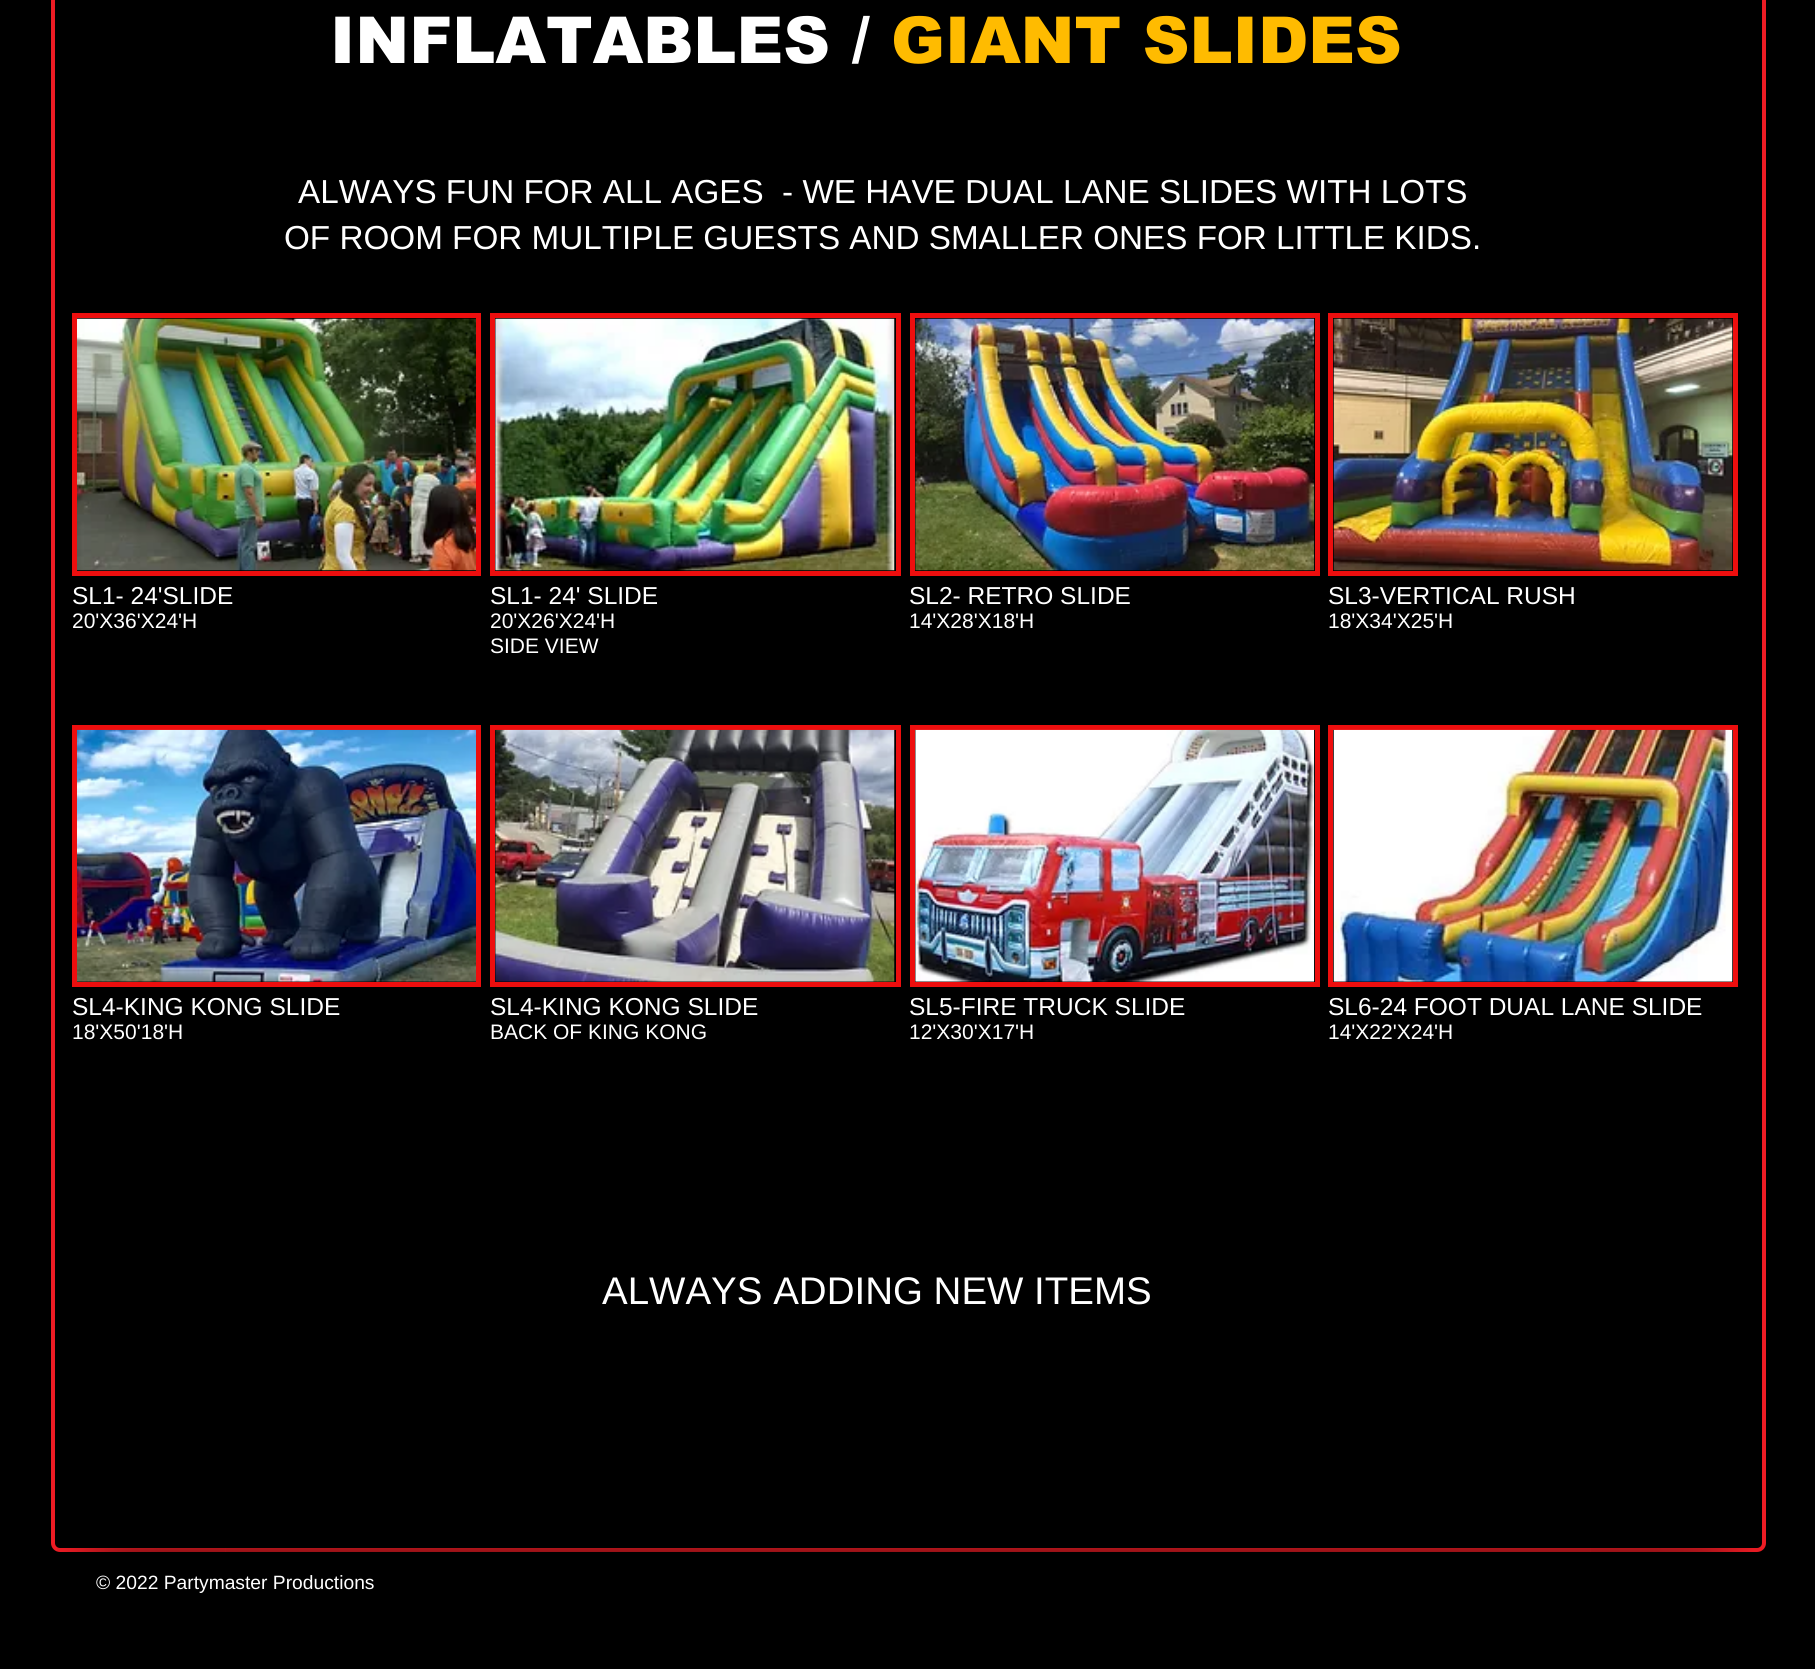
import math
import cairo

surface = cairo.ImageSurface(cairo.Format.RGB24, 1815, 1669)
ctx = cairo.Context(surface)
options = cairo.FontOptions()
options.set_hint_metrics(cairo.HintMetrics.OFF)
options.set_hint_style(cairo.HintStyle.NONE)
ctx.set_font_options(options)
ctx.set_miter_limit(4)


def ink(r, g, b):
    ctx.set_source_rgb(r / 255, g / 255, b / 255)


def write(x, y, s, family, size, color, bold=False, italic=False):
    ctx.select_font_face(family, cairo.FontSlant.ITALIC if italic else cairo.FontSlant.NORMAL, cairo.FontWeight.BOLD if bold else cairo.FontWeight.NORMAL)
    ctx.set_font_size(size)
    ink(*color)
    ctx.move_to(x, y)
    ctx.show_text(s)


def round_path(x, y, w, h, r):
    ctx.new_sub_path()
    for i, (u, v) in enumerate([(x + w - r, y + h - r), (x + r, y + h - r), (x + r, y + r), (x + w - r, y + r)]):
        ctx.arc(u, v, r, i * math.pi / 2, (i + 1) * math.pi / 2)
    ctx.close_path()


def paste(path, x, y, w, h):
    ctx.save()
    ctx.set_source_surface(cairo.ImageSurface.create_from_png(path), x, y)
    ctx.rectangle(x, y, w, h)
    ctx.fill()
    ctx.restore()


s1 = dict(family="arial Black", size=64.75, color=(255, 255, 255))
s2 = dict(family="arial Black", size=64.75, color=(255, 187, 0))
s3 = dict(family="Liberation Sans", size=33.25, color=(255, 255, 255))
s4 = dict(family="Liberation Sans", size=24.5, color=(255, 255, 255))
s5 = dict(family="Liberation Sans", size=21, color=(255, 255, 255))
s6 = dict(family="Liberation Sans", size=38.5, color=(255, 255, 255))
s7 = dict(family="Liberation Sans", size=19.25, color=(255, 255, 255))

ink(0, 0, 0)
ctx.paint()
round_path(53, -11, 1711, 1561, 7)
ink(237, 28, 36)
ctx.set_line_width(4)
ctx.stroke()
write(330, 63, "INFLATABLES /", **s1)
write(891, 63, "GIANT SLIDES", **s2)
write(298, 203, "ALWAYS FUN FOR ALL AGES  - WE HAVE DUAL LANE SLIDES WITH LOTS", **s3)
write(284, 249, "OF ROOM FOR MULTIPLE GUESTS AND SMALLER ONES FOR LITTLE KIDS.", **s3)
ctx.rectangle(74.5, 315.5, 404, 258)
ink(237, 14, 14)
ctx.set_line_width(5)
ctx.stroke()
paste("pic1.png", 77, 318, 399, 253)
write(72, 604, "SL1- 24'SLIDE", **s4)
write(72, 628, "20'X36'X24'H", **s5)
ctx.rectangle(492.5, 315.5, 406, 258)
ink(237, 14, 14)
ctx.stroke()
paste("pic2.png", 495, 318, 400, 253)
write(490, 604, "SL1- 24' SLIDE", **s4)
write(490, 628, "20'X26'X24'H", **s5)
write(490, 653, "SIDE VIEW", **s5)
ctx.rectangle(912.5, 315.5, 405, 258)
ink(237, 14, 14)
ctx.stroke()
paste("pic3.png", 915, 318, 400, 253)
write(909, 604, "SL2- RETRO SLIDE", **s4)
write(909, 628, "14'X28'X18'H", **s5)
ctx.rectangle(1330.5, 315.5, 405, 258)
ink(237, 14, 14)
ctx.stroke()
paste("pic4.png", 1333, 318, 400, 253)
write(1328, 604, "SL3-VERTICAL RUSH", **s4)
write(1328, 628, "18'X34'X25'H", **s5)
ctx.rectangle(74.5, 727.5, 404, 257)
ink(237, 14, 14)
ctx.stroke()
paste("pic5.png", 77, 729, 399, 253)
write(72, 1015, "SL4-KING KONG SLIDE", **s4)
write(72, 1039, "18'X50'18'H", **s5)
ctx.rectangle(492.5, 727.5, 406, 257)
ink(237, 14, 14)
ctx.stroke()
paste("pic6.png", 495, 729, 400, 253)
write(490, 1015, "SL4-KING KONG SLIDE", **s4)
write(490, 1039, "BACK OF KING KONG", **s5)
ctx.rectangle(912.5, 727.5, 405, 257)
ink(237, 14, 14)
ctx.stroke()
paste("pic7.png", 915, 729, 400, 253)
write(909, 1015, "SL5-FIRE TRUCK SLIDE", **s4)
write(909, 1039, "12'X30'X17'H", **s5)
ctx.rectangle(1330.5, 727.5, 405, 257)
ink(237, 14, 14)
ctx.stroke()
paste("pic8.png", 1333, 729, 400, 253)
write(1328, 1015, "SL6-24 FOOT DUAL LANE SLIDE", **s4)
write(1328, 1039, "14'X22'X24'H", **s5)
write(602, 1304, "ALWAYS ADDING NEW ITEMS", **s6)
paste("pic9.png", 57, 1548, 169, 4)
paste("pic10.png", 225, 1548, 1366, 4)
paste("pic11.png", 1590, 1548, 170, 4)
write(96, 1589, "© 2022 Partymaster Productions", **s7)
surface.write_to_png("screenshot.png")
